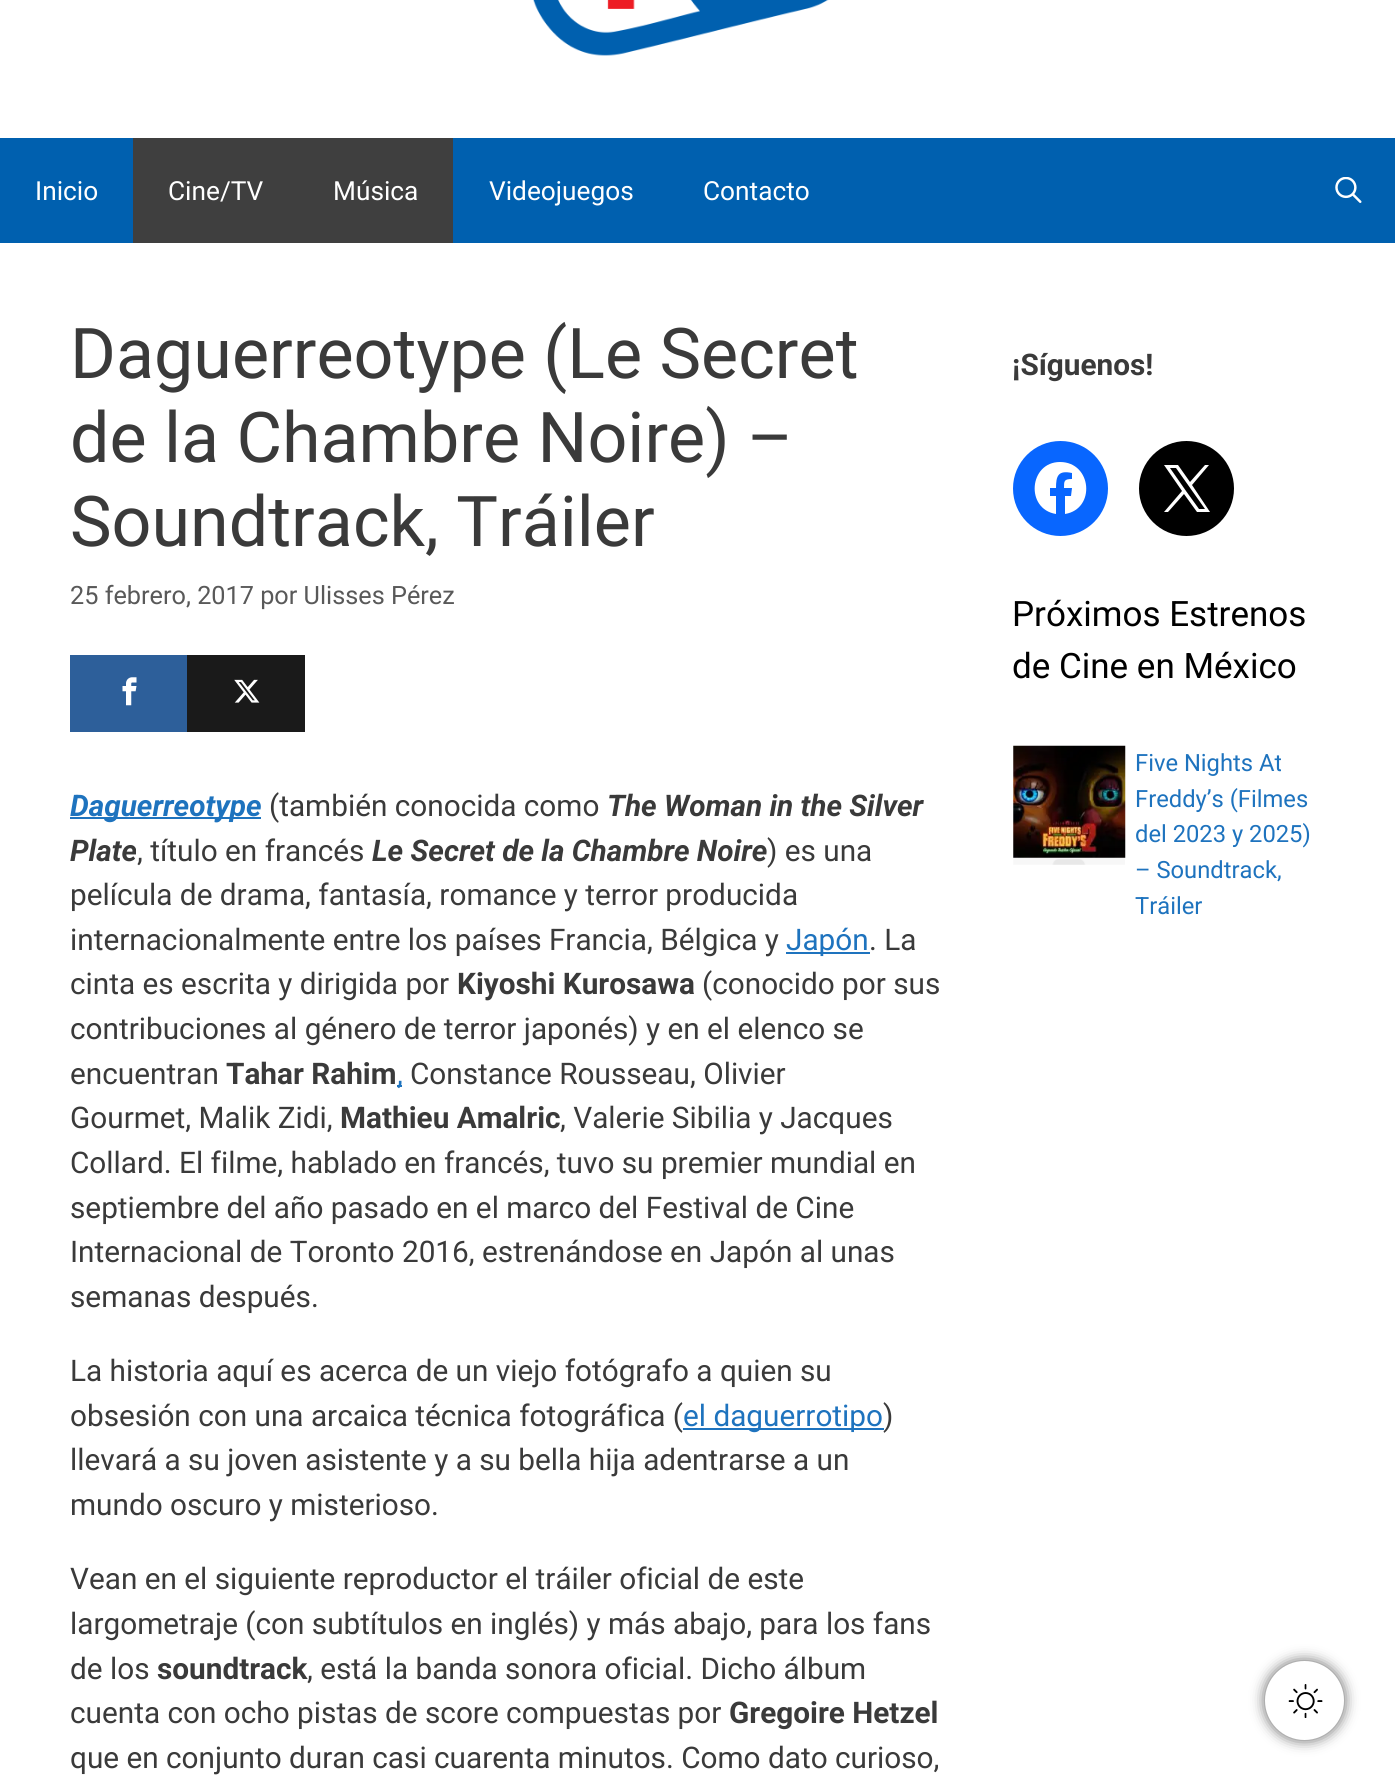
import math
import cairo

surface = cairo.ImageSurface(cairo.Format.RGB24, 1395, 1791)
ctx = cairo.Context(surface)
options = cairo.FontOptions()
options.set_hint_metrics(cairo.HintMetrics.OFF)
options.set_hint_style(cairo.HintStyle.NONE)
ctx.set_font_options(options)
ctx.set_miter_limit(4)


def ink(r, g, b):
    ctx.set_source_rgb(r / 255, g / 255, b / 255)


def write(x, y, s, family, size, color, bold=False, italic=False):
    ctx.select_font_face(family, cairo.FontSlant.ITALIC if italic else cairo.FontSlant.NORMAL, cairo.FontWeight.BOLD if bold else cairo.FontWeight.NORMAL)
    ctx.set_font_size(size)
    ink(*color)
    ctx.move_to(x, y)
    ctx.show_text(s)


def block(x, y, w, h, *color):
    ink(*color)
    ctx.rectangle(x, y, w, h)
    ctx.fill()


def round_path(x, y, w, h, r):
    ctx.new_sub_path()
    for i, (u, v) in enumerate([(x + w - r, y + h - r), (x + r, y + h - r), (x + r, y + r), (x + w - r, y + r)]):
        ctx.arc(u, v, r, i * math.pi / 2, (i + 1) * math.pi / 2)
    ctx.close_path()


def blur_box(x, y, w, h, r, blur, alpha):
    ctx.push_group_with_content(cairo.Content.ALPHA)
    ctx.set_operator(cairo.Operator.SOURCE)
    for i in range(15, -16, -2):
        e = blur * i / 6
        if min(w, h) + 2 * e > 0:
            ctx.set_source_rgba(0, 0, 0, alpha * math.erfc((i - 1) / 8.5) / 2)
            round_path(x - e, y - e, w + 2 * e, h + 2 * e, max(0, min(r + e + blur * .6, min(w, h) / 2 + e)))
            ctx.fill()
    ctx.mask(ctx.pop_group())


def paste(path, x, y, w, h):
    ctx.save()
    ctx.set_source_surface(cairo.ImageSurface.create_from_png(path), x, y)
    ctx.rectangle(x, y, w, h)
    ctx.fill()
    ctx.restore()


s1 = dict(family="Roboto", size=26.25, color=(255, 255, 255))
s2 = dict(family="Roboto", size=70, color=(58, 58, 58))
s3 = dict(family="Roboto", size=25.25, color=(89, 89, 89))
s4 = dict(family="Roboto", size=29.75, color=(30, 115, 190), bold=True, italic=True)
s5 = dict(family="Roboto", size=29.75, color=(58, 58, 58))
s6 = dict(family="Roboto", size=29.75, color=(58, 58, 58), bold=True, italic=True)
s7 = dict(family="Roboto", size=29.75, color=(30, 115, 190))
s8 = dict(family="Roboto", size=29.75, color=(58, 58, 58), bold=True)
s9 = dict(family="Roboto", size=35, color=(0, 0, 0))
s10 = dict(family="Roboto", size=23.75, color=(30, 115, 190))

ink(0, 96, 175)
ctx.paint()
block(0, 0, 1395, 138, 255, 255, 255)
paste("pic1.png", 533, 0, 296, 56)
write(35, 200, "Inicio", **s1)
block(133, 138, 320, 105, 63, 63, 63)
write(168, 200, "Cine/TV", **s1)
write(333, 200, "Música", **s1)
write(489, 200, "Videojuegos", **s1)
write(703, 200, "Contacto", **s1)
paste("pic2.png", 1335, 177, 27, 26)
block(0, 243, 1395, 1548, 255, 255, 255)
write(70, 378, "Daguerreotype (Le Secret", **s2)
write(70, 462, "de la Chambre Noire) –", **s2)
write(70, 546, "Soundtrack, Tráiler", **s2)
write(70, 604, "25 febrero, 2017 por Ulisses Pérez", **s3)
block(70, 655, 117, 77, 45, 95, 154)
paste("pic3.png", 122, 677, 15, 29)
block(187, 655, 118, 77, 26, 26, 26)
paste("pic4.png", 234, 679, 26, 24)
block(70, 817, 191, 2, 30, 115, 190)
write(70, 816, "Daguerreotype", **s4)
write(269, 816, "(también conocida como", **s5)
write(607, 816, "The Woman in the Silver", **s6)
write(70, 861, "Plate", **s6)
write(137, 861, ", título en francés", **s5)
write(372, 861, "Le Secret de la Chambre Noire", **s6)
write(767, 861, ") es una", **s5)
write(70, 905, "película de drama, fantasía, romance y terror producida", **s5)
write(70, 950, "internacionalmente entre los países Francia, Bélgica y", **s5)
block(786, 952, 84, 2, 30, 115, 190)
write(786, 950, "Japón", **s7)
write(869, 950, ". La", **s5)
write(70, 994, "cinta es escrita y dirigida por", **s5)
write(457, 994, "Kiyoshi Kurosawa", **s8)
write(702, 994, "(conocido por sus", **s5)
write(70, 1039, "contribuciones al género de terror japonés) y en el elenco se", **s5)
write(70, 1084, "encuentran", **s5)
write(226, 1084, "Tahar Rahim", **s8)
block(397, 1085, 5, 2, 30, 115, 190)
write(397, 1084, ",", **s7)
write(410, 1084, "Constance Rousseau, Olivier", **s5)
write(70, 1128, "Gourmet, Malik Zidi,", **s5)
write(340, 1128, "Mathieu Amalric", **s8)
write(560, 1128, ", Valerie Sibilia y Jacques", **s5)
write(70, 1173, "Collard. El filme, hablado en francés, tuvo su premier mundial en", **s5)
write(70, 1218, "septiembre del año pasado en el marco del Festival de Cine", **s5)
write(70, 1262, "Internacional de Toronto 2016, estrenándose en Japón al unas", **s5)
write(70, 1307, "semanas después.", **s5)
write(70, 1381, "La historia aquí es acerca de un viejo fotógrafo a quien su", **s5)
write(70, 1426, "obsesión con una arcaica técnica fotográfica (", **s5)
block(683, 1428, 201, 2, 30, 115, 190)
write(683, 1426, "el daguerrotipo", **s7)
write(883, 1426, ")", **s5)
write(70, 1470, "llevará a su joven asistente y a su bella hija adentrarse a un", **s5)
write(70, 1515, "mundo oscuro y misterioso.", **s5)
write(70, 1589, "Vean en el siguiente reproductor el tráiler oficial de este", **s5)
write(70, 1634, "largometraje (con subtítulos en inglés) y más abajo, para los fans", **s5)
write(70, 1679, "de los", **s5)
write(157, 1679, "soundtrack", **s8)
write(307, 1679, ", está la banda sonora oficial. Dicho álbum", **s5)
write(70, 1723, "cuenta con ocho pistas de score compuestas por", **s5)
write(729, 1723, "Gregoire Hetzel", **s8)
write(70, 1768, "que en conjunto duran casi cuarenta minutos. Como dato curioso,", **s5)
write(1012, 375, "¡Síguenos!", **s8)
ink(8, 102, 255)
ctx.new_path()
ctx.arc(1060.5, 488.5, 47.5, 0, 2 * math.pi)
ctx.fill()
ink(255, 255, 255)
ctx.new_path()
ctx.move_to(1060, 462)
ctx.curve_to(1029, 462, 1025, 509, 1056, 514)
ctx.line_to(1056, 496)
ctx.line_to(1050, 496)
ctx.line_to(1050, 488)
ctx.line_to(1056, 488)
ctx.curve_to(1056, 476, 1058, 470, 1072, 473)
ctx.line_to(1072, 479)
ctx.curve_to(1064, 479, 1064, 481, 1064, 488)
ctx.line_to(1072, 488)
ctx.line_to(1071, 496)
ctx.line_to(1065, 496)
ctx.line_to(1065, 514)
ctx.curve_to(1096, 509, 1092, 462, 1060, 462)
ctx.close_path()
ctx.fill()
ink(0, 0, 0)
ctx.arc(1186.5, 488.5, 47.5, 0, 2 * math.pi)
ctx.fill()
ink(255, 255, 255)
ctx.new_path()
ctx.move_to(1192, 485)
ctx.line_to(1209, 465)
ctx.line_to(1205, 465)
ctx.line_to(1190, 482)
ctx.line_to(1178, 465)
ctx.line_to(1164, 465)
ctx.line_to(1182, 491)
ctx.line_to(1164, 512)
ctx.line_to(1168, 512)
ctx.line_to(1184, 494)
ctx.line_to(1197, 512)
ctx.line_to(1210, 512)
ctx.close_path()
ctx.move_to(1186, 491)
ctx.line_to(1170, 468)
ctx.line_to(1176, 468)
ctx.line_to(1205, 509)
ctx.line_to(1199, 509)
ctx.close_path()
ctx.fill()
write(1012, 626, "Próximos Estrenos", **s9)
write(1012, 678, "de Cine en México", **s9)
paste("pic6.png", 1013, 830, 112, 35)
paste("pic5.png", 1013, 745, 113, 113)
write(1135, 771, "Five Nights At", **s10)
write(1135, 807, "Freddy’s (Filmes", **s10)
write(1135, 842, "del 2023 y 2025)", **s10)
write(1135, 878, "– Soundtrack,", **s10)
write(1135, 914, "Tráiler", **s10)
ink(0, 0, 0)
blur_box(1265, 1661, 79, 79, 39.5, 7, 0.63)
ink(255, 255, 255)
ctx.arc(1304.5, 1700.5, 39.5, 0, 2 * math.pi)
ctx.fill()
paste("pic7.png", 1288, 1684, 35, 34)
surface.write_to_png("screenshot.png")
